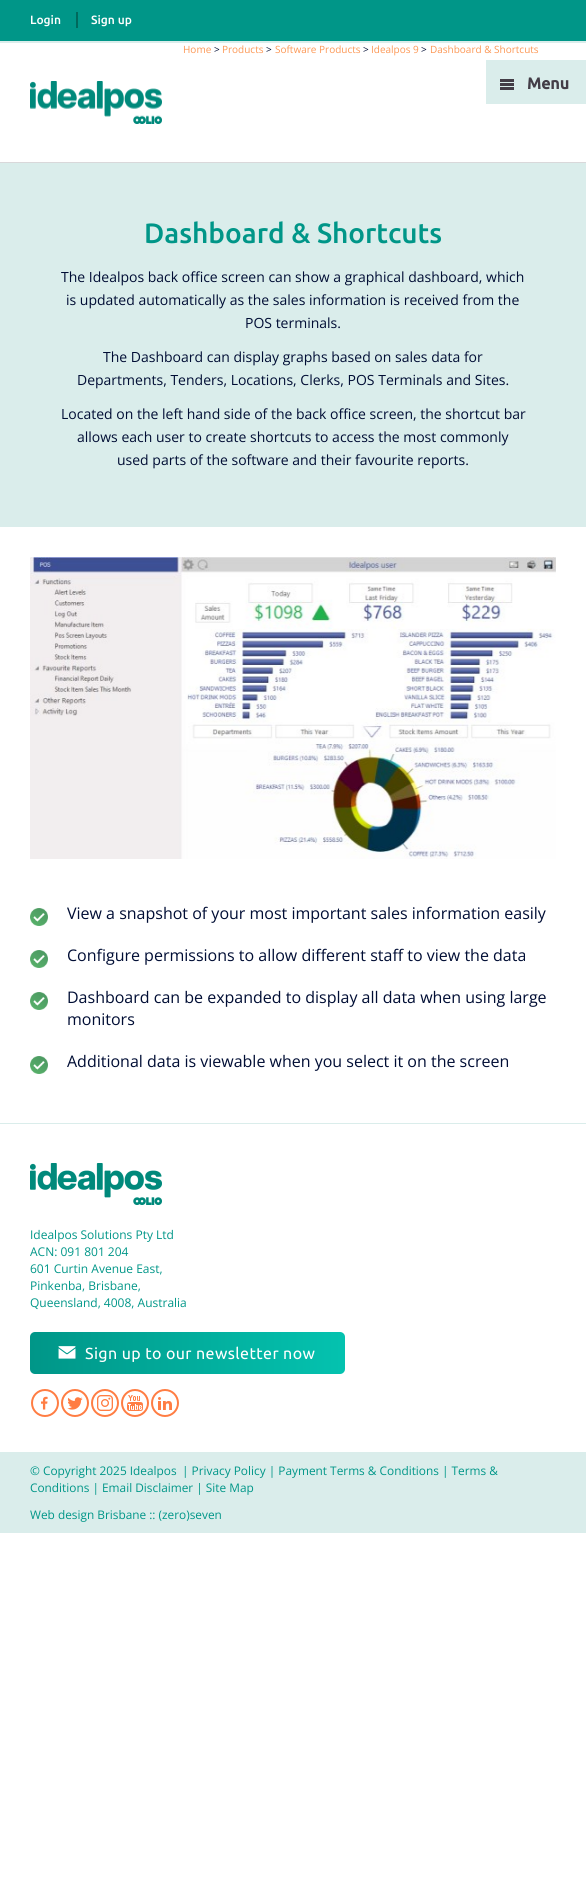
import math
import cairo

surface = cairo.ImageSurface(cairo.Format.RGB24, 586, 1887)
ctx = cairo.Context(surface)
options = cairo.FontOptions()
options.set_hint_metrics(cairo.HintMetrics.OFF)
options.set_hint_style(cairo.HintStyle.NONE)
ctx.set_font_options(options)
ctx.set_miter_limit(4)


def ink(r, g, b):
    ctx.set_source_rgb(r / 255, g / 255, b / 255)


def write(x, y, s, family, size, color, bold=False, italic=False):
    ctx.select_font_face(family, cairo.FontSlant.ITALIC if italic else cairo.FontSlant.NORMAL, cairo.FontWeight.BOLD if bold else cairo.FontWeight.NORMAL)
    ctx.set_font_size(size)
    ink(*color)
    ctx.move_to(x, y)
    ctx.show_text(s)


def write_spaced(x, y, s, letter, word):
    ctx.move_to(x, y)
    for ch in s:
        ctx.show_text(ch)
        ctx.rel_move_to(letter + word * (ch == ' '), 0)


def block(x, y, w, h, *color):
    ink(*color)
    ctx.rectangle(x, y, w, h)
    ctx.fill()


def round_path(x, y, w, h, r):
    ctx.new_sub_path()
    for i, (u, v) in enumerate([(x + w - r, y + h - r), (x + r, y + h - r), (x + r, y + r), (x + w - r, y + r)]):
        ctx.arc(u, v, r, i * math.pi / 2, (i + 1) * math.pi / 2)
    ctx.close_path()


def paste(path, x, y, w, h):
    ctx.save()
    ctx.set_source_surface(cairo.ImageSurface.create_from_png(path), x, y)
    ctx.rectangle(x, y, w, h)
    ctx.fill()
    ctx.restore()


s1 = dict(family="Ubuntu Medium", size=12, color=(255, 255, 255))
s2 = dict(family="Open Sans", size=10, color=(252, 152, 86))
s3 = dict(family="Open Sans", size=10, color=(0, 13, 52))
s4 = dict(family="Ubuntu", size=16, color=(67, 61, 71), bold=True)
s5 = dict(family="Ubuntu Medium", size=28, color=(0, 150, 136))
s6 = dict(family="Open Sans", size=14, color=(0, 13, 52))
s7 = dict(family="Open Sans", size=16, color=(0, 13, 52))
s8 = dict(family="Open Sans", size=12, color=(0, 150, 136))
s9 = dict(family="Open Sans", size=11.85, color=(0, 150, 136))

ink(255, 255, 255)
ctx.paint()
block(0, 0, 586, 41, 0, 150, 136)
block(0, 41, 586, 2, 218, 237, 235)
write(30, 24, "Login", **s1)
block(76, 12, 2, 16, 0, 105, 92)
write(91, 24, "Sign up", **s1)
block(0, 162, 586, 1, 217, 216, 218)
write(183, 53, "Home", **s2)
write(214, 53, ">", **s3)
write(222, 53, "Products", **s2)
write(266, 53, ">", **s3)
write(275, 53, "Software Products", **s2)
write(363, 53, ">", **s3)
write(371, 53, "Idealpos 9", **s2)
write(421, 53, ">", **s3)
write(430, 53, "Dashboard & Shortcuts", **s2)
paste("pic1.png", 30, 81, 132, 43)
block(486, 60, 100, 44, 218, 237, 235)
paste("pic2.png", 500, 79, 14, 11)
write(527, 89, "Menu", **s4)
block(0, 163, 586, 364, 218, 237, 235)
write(144, 243, "Dashboard & Shortcuts", **s5)
write(61, 282, "The Idealpos back office screen can show a graphical dashboard, which", **s6)
write(66, 305, "is updated automatically as the sales information is received from the", **s6)
write(245, 328, "POS terminals.", **s6)
write(103, 362, "The Dashboard can display graphs based on sales data for", **s6)
write(77, 385, "Departments, Tenders, Locations, Clerks, POS Terminals and Sites.", **s6)
write(61, 419, "Located on the left hand side of the back office screen, the shortcut bar", **s6)
write(77, 442, "allows each user to create shortcuts to access the most commonly", **s6)
write(117, 465, "used parts of the software and their favourite reports.", **s6)
paste("pic3.png", 30, 557, 526, 302)
paste("pic4.png", 30, 908, 18, 18)
write(67, 919, "View a snapshot of your most important sales information easily", **s7)
paste("pic4.png", 30, 950, 18, 18)
write(67, 961, "Configure permissions to allow different staff to view the data", **s7)
paste("pic4.png", 30, 992, 18, 18)
write(67, 1003, "Dashboard can be expanded to display all data when using large", **s7)
write(67, 1025, "monitors", **s7)
paste("pic4.png", 30, 1056, 18, 18)
write(67, 1067, "Additional data is viewable when you select it on the screen", **s7)
block(0, 1123, 586, 1, 218, 237, 235)
paste("pic5.png", 30, 1163, 132, 42)
write(30, 1239, "Idealpos Solutions Pty Ltd", **s8)
write(30, 1256, "ACN: 091 801 204", **s8)
write(30, 1273, "601 Curtin Avenue East,", **s8)
write(30, 1290, "Pinkenba, Brisbane,", **s8)
write(30, 1307, "Queensland, 4008, Australia", **s8)
gradient = cairo.LinearGradient(30, 1353, 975, 1353)
gradient.add_color_stop_rgba(0, 0, 0.588, 0.533, 1)
gradient.add_color_stop_rgba(0.33, 0.016, 0.761, 0.686, 1)
gradient.add_color_stop_rgba(0.67, 0.016, 0.702, 0.435, 1)
gradient.add_color_stop_rgba(1, 0, 0.588, 0.361, 1)
ctx.set_source(gradient)
round_path(30, 1332, 315, 42, 5)
ctx.fill()
paste("pic6.png", 58, 1346, 18, 13)
ctx.select_font_face("Ubuntu")
ctx.set_font_size(16)
ink(255, 255, 255)
write_spaced(85, 1359, "Sign up to our newsletter now", 0.4, 0)
ctx.new_path()
ctx.arc(45, 1403, 13, 0, 2 * math.pi)
ink(255, 125, 67)
ctx.stroke()
paste("pic7.png", 41, 1396, 7, 14)
ctx.arc(75, 1403, 13, 0, 2 * math.pi)
ctx.stroke()
paste("pic8.png", 67, 1397, 16, 13)
ctx.arc(105, 1403, 13, 0, 2 * math.pi)
ctx.stroke()
paste("pic9.png", 97, 1395, 16, 16)
ctx.arc(135, 1403, 13, 0, 2 * math.pi)
ctx.stroke()
paste("pic10.png", 127, 1395, 16, 16)
ctx.arc(165, 1403, 13, 0, 2 * math.pi)
ctx.stroke()
paste("pic11.png", 158, 1397, 14, 13)
block(0, 1452, 586, 81, 218, 237, 235)
write(30, 1475, "© Copyright 2025 Idealpos", **s9)
write(182, 1475, "| Privacy Policy | Payment Terms & Conditions | Terms &", **s9)
write(30, 1492, "Conditions | Email Disclaimer | Site Map", **s9)
write(30, 1519, "Web design Brisbane :: (zero)seven", **s9)
surface.write_to_png("screenshot.png")
